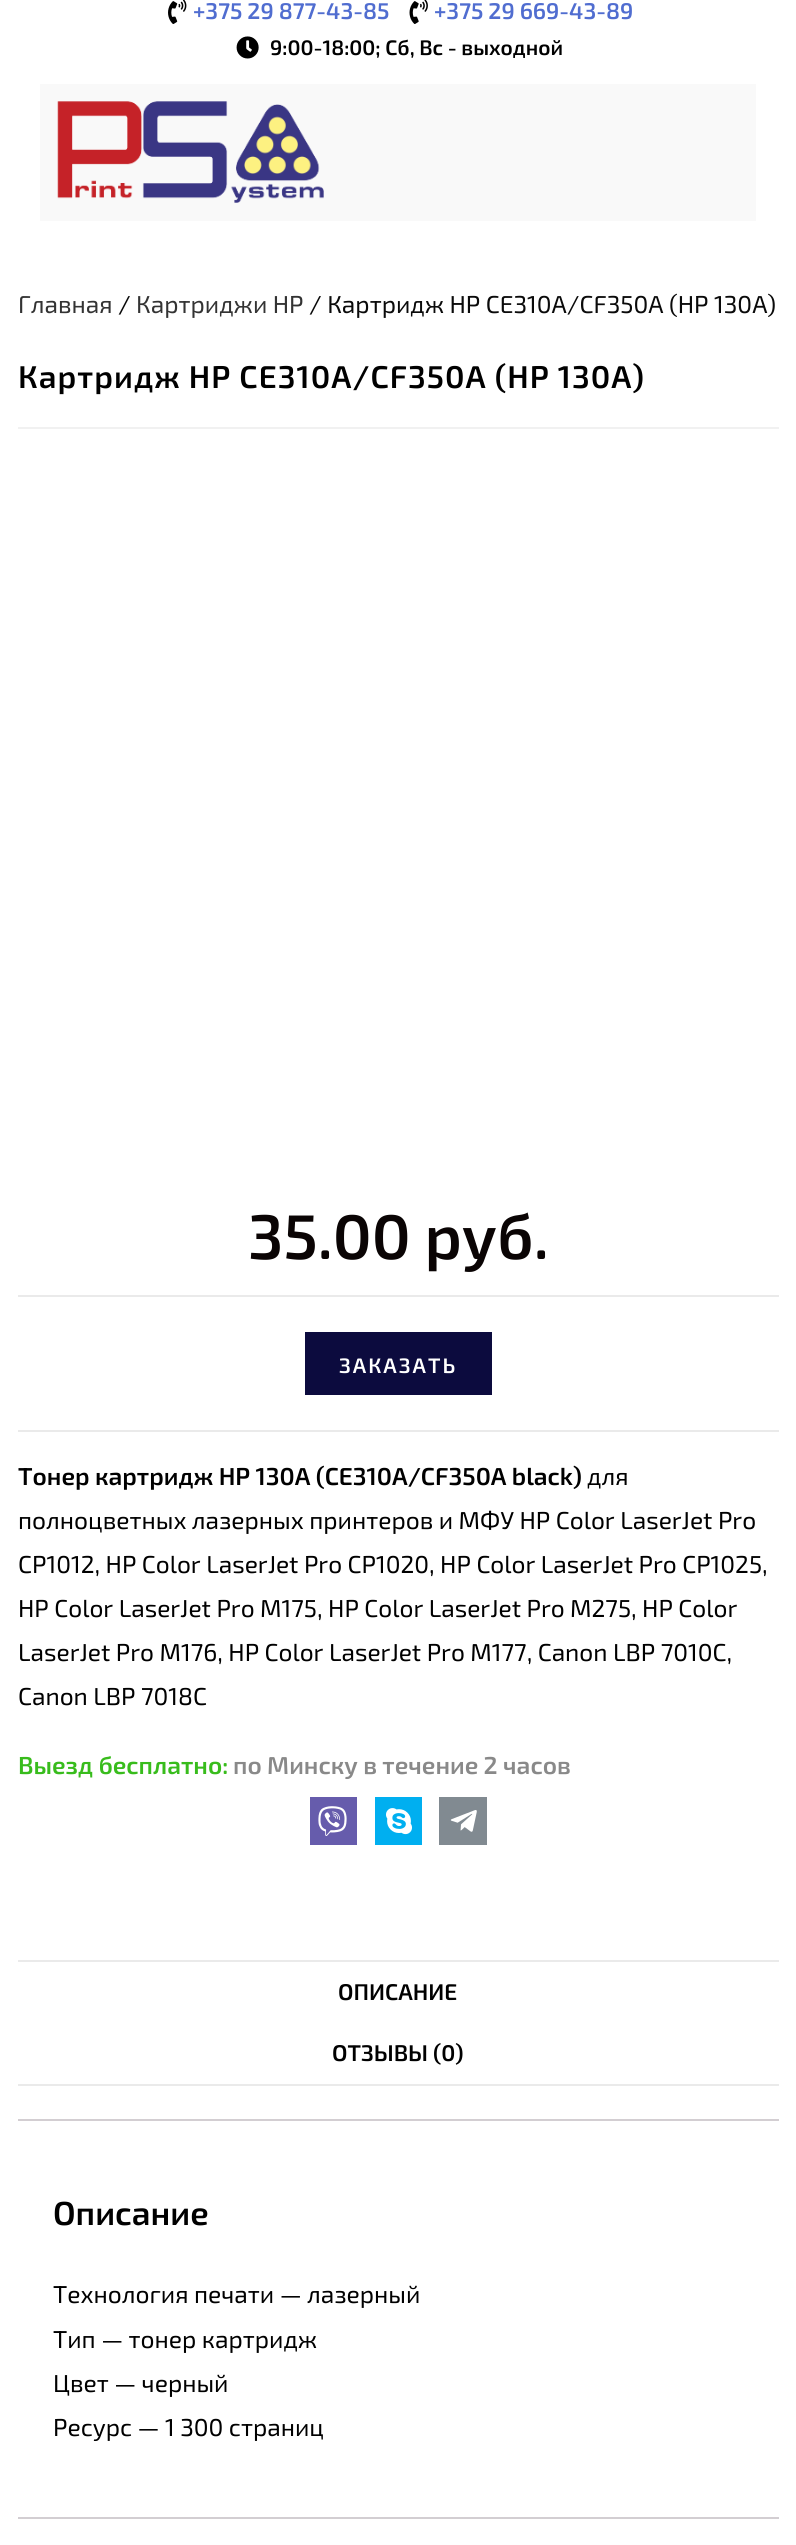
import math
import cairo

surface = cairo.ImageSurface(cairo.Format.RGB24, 796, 2545)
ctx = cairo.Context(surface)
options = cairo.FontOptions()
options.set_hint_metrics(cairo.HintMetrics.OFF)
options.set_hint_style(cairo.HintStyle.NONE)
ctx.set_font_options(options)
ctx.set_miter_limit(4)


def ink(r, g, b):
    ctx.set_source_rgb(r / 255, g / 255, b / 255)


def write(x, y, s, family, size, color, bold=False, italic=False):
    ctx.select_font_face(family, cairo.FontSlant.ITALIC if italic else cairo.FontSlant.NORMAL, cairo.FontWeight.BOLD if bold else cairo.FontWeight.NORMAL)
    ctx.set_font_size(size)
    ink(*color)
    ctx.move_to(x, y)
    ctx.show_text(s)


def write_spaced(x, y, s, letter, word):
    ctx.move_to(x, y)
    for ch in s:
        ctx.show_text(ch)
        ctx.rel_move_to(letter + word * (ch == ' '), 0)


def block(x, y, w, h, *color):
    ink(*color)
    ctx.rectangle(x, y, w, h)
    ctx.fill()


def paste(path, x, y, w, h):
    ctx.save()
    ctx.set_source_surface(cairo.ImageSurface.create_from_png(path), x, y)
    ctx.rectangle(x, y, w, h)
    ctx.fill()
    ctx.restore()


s1 = dict(family="Exo 2 SemiBold", size=22.75, color=(80, 109, 208))
s2 = dict(family="Exo 2 SemiBold", size=21, color=(0, 0, 0))
s3 = dict(family="Exo 2", size=24.5, color=(51, 51, 51))
s4 = dict(family="Exo 2", size=24.5, color=(10, 10, 10))
s5 = dict(family="Exo 2 SemiBold", size=63, color=(10, 4, 4))
s6 = dict(family="Exo 2 SemiBold", size=24.5, color=(0, 0, 0))
s7 = dict(family="Exo 2", size=24.5, color=(0, 0, 0))
s8 = dict(family="Exo 2 SemiBold", size=24.5, color=(56, 188, 28))
s9 = dict(family="Exo 2 SemiBold", size=24.5, color=(137, 137, 137))
s10 = dict(family="Exo 2 SemiBold", size=22.75, color=(0, 0, 0))
s11 = dict(family="Exo 2 SemiBold", size=33.25, color=(0, 0, 0))

ink(255, 255, 255)
ctx.paint()
paste("pic1.png", 168, 0, 19, 24)
write(193, 19, "+375 29 877-43-85", **s1)
paste("pic2.png", 409, 0, 19, 24)
write(434, 19, "+375 29 669-43-89", **s1)
paste("pic3.png", 236, 36, 23, 23)
write(270, 55, "9:00-18:00; Сб, Вс - выходной", **s2)
block(40, 84, 716, 137, 249, 249, 249)
paste("pic4.png", 57, 101, 267, 102)
write(18, 313, "Главная", **s3)
write(118, 313, "/", **s4)
write(136, 313, "Картриджи HP", **s3)
write(309, 313, "/ Картридж HP CE310A/CF350A (HP 130A)", **s4)
block(18, 427, 761, 2, 241, 241, 241)
ctx.select_font_face("Exo 2 SemiBold")
ctx.set_font_size(31.5)
ink(0, 0, 0)
write_spaced(18, 388, "Картридж HP CE310A/CF350A (HP 130A)", 1.05, 0)
write(248, 1259, "35.00 руб.", **s5)
block(18, 1295, 761, 2, 234, 234, 234)
block(18, 1430, 761, 2, 234, 234, 234)
block(305, 1332, 187, 63, 12, 11, 62)
ctx.set_font_size(21)
ink(255, 255, 255)
write_spaced(339, 1373, "ЗАКАЗАТЬ", 2, 0)
write(18, 1485, "Тонер картридж HP 130A (CE310A/CF350A black)", **s6)
write(587, 1485, "для", **s7)
write(18, 1529, "полноцветных лазерных принтеров и МФУ HP Color LaserJet Pro", **s7)
write(18, 1573, "CP1012, HP Color LaserJet Pro CP1020, HP Color LaserJet Pro CP1025,", **s7)
write(18, 1617, "HP Color LaserJet Pro M175, HP Color LaserJet Pro M275, HP Color", **s7)
write(18, 1661, "LaserJet Pro M176, HP Color LaserJet Pro M177, Canon LBP 7010C,", **s7)
write(18, 1705, "Canon LBP 7018C", **s7)
write(18, 1774, "Выезд бесплатно:", **s8)
write(233, 1774, "по Минску в течение 2 часов", **s9)
block(310, 1797, 47, 48, 102, 92, 172)
paste("pic5.png", 318, 1806, 29, 30)
block(375, 1797, 47, 48, 0, 175, 240)
paste("pic6.png", 386, 1808, 26, 27)
block(439, 1797, 48, 48, 129, 138, 145)
paste("pic7.png", 450, 1810, 27, 22)
block(18, 1960, 761, 2, 234, 234, 234)
block(18, 2084, 761, 2, 234, 234, 234)
write(338, 2000, "ОПИСАНИЕ", **s10)
write(332, 2061, "ОТЗЫВЫ (0)", **s10)
block(18, 2119, 761, 2, 211, 206, 210)
write(53, 2225, "Описание", **s11)
write(53, 2303, "Технология печати — лазерный", **s7)
write(53, 2348, "Тип — тонер картридж", **s7)
write(53, 2392, "Цвет — черный", **s7)
write(53, 2436, "Ресурс — 1 300 страниц", **s7)
block(18, 2517, 761, 2, 211, 206, 210)
surface.write_to_png("screenshot.png")
